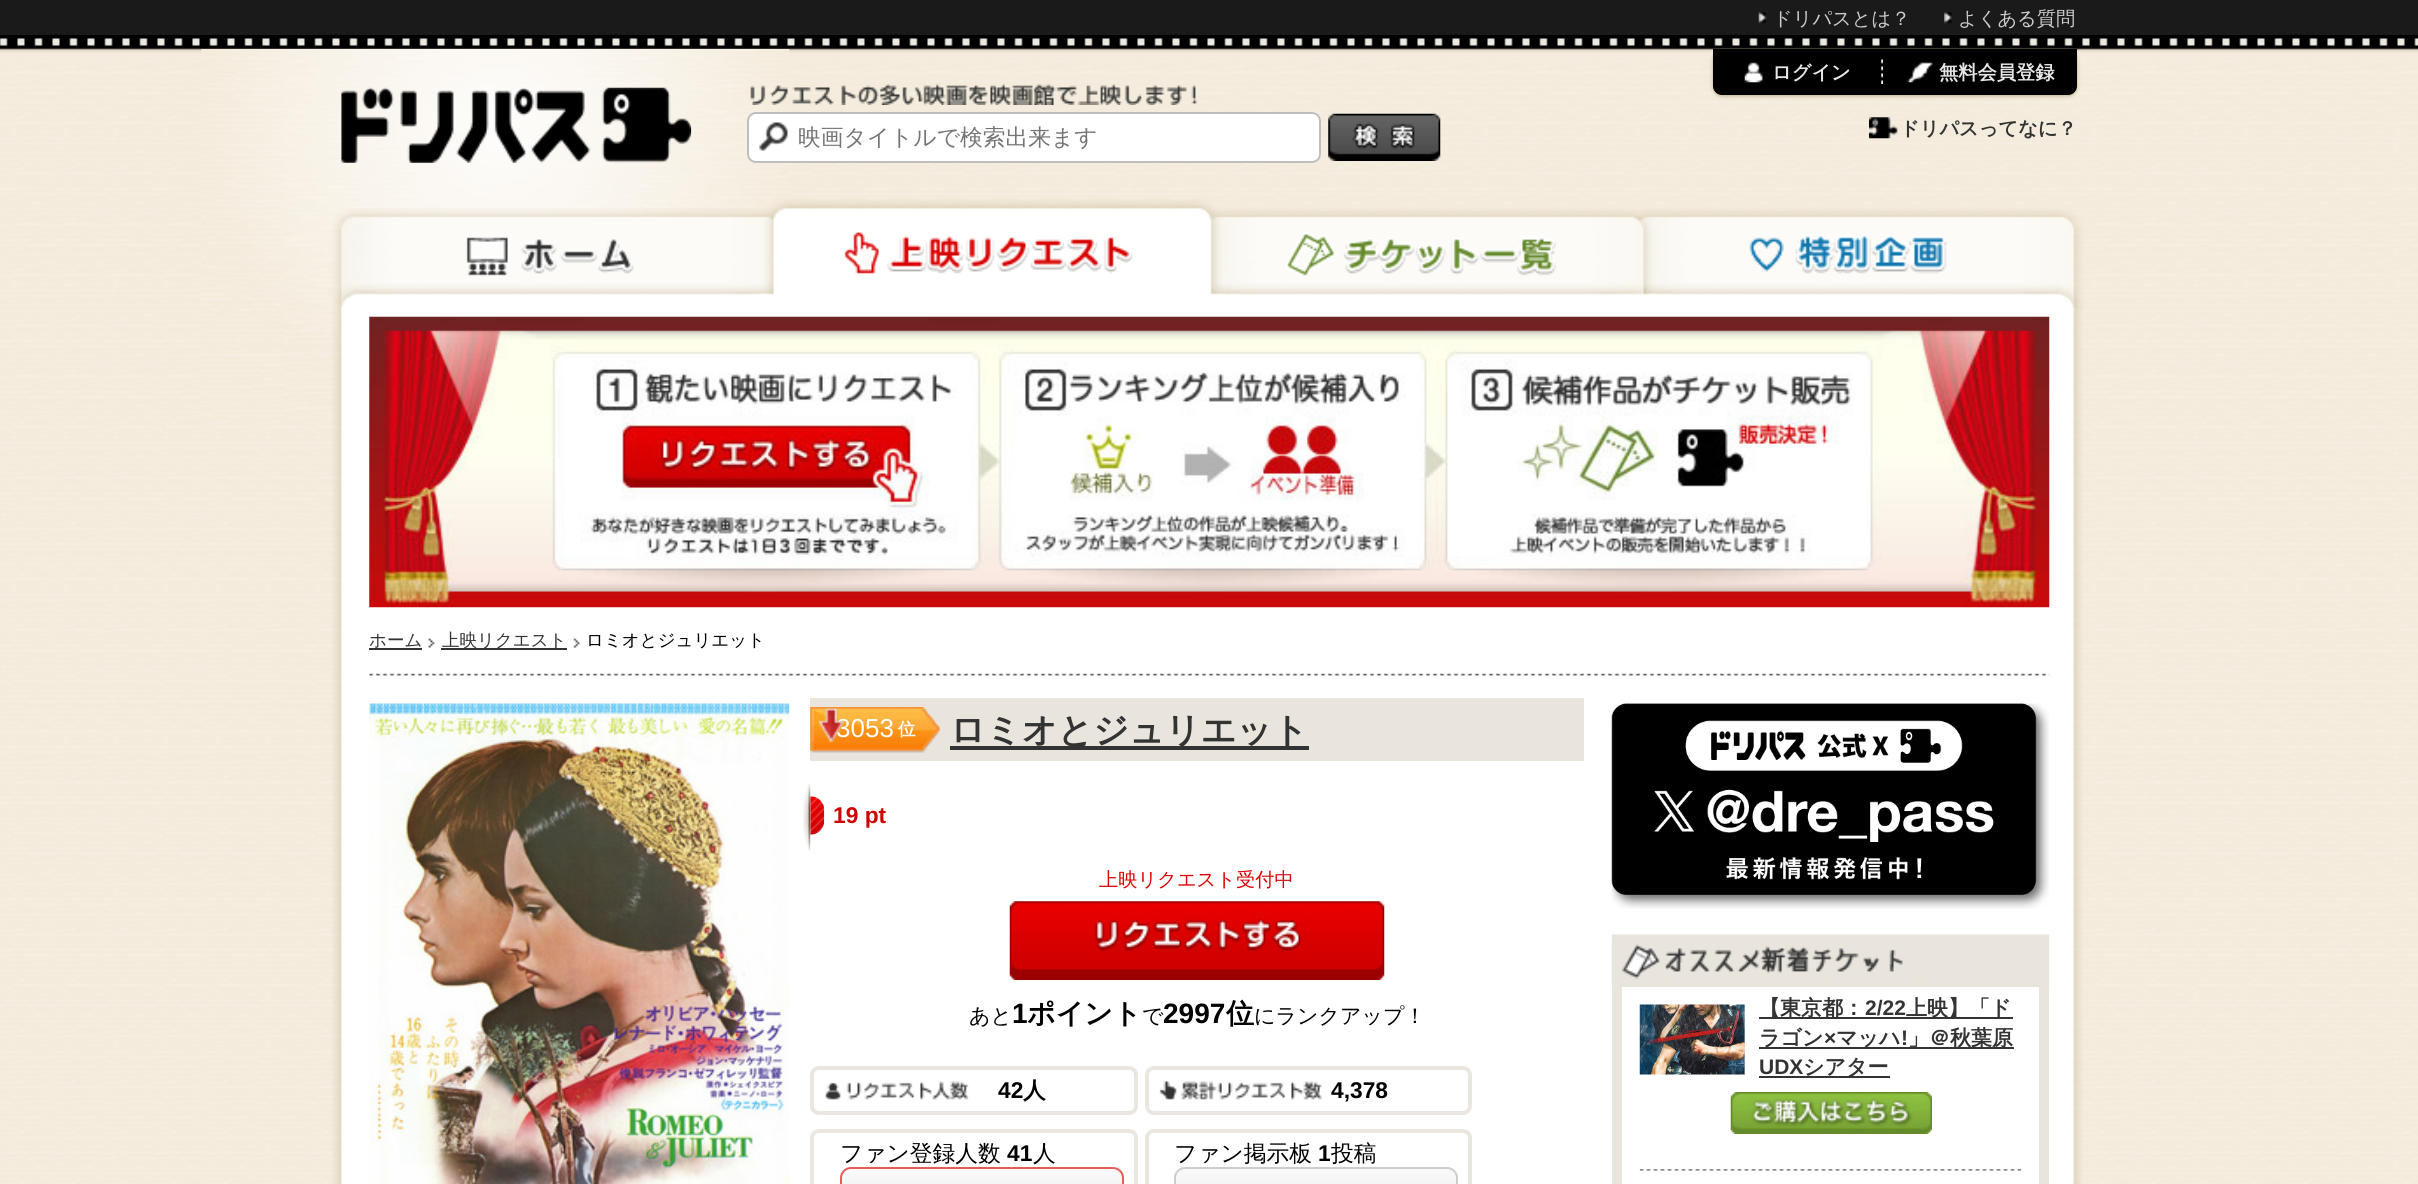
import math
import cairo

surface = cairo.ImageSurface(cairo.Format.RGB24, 2418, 1184)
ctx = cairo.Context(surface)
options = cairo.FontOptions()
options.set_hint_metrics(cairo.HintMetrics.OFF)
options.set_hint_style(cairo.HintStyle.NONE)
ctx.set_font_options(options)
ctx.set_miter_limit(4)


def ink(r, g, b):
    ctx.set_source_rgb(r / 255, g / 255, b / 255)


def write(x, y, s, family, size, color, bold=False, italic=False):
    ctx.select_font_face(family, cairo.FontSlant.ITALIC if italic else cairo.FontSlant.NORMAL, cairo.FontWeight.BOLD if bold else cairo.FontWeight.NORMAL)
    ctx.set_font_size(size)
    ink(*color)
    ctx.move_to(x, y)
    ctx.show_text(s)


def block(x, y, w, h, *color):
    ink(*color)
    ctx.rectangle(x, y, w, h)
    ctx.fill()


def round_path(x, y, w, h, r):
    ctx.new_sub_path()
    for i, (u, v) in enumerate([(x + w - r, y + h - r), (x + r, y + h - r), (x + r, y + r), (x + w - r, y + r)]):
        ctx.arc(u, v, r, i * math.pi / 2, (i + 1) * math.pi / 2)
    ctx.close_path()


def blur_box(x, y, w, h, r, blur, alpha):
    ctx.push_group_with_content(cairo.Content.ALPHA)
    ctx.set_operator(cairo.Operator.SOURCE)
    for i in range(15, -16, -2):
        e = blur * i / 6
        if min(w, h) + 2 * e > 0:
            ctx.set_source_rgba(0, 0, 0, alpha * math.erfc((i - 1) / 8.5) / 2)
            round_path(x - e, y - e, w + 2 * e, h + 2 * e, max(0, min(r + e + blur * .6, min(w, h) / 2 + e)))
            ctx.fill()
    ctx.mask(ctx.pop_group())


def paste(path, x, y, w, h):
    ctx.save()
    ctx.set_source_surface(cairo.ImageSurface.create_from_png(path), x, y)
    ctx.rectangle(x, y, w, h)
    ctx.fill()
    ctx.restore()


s1 = dict(family="WenQuanYi Zen Hei Medium", size=19.25, color=(204, 204, 204))
s2 = dict(family="WenQuanYi Zen Hei Medium", size=22.75, color=(117, 117, 117))
s3 = dict(family="WenQuanYi Zen Hei", size=19.25, color=(230, 230, 230), bold=True)
s4 = dict(family="WenQuanYi Zen Hei", size=19.25, color=(51, 51, 51), bold=True)
s5 = dict(family="WenQuanYi Zen Hei Medium", size=17.5, color=(51, 51, 51))
s6 = dict(family="WenQuanYi Zen Hei Medium", size=17.5, color=(0, 0, 0))
s7 = dict(family="Liberation Sans", size=26, color=(255, 255, 255))
s8 = dict(family="WenQuanYi Zen Hei", size=35, color=(51, 51, 51), bold=True)
s9 = dict(family="Liberation Sans", size=22.75, color=(206, 0, 0), bold=True)
s10 = dict(family="WenQuanYi Zen Hei Medium", size=19.25, color=(217, 1, 2))
s11 = dict(family="WenQuanYi Zen Hei Medium", size=21, color=(0, 0, 0))
s12 = dict(family="Liberation Sans", size=28, color=(0, 0, 0), bold=True)
s13 = dict(family="WenQuanYi Zen Hei", size=28, color=(0, 0, 0), bold=True)
s14 = dict(family="Liberation Sans", size=22.75, color=(0, 0, 0), bold=True)
s15 = dict(family="WenQuanYi Zen Hei", size=22.75, color=(0, 0, 0), bold=True)
s16 = dict(family="WenQuanYi Zen Hei Medium", size=22.75, color=(0, 0, 0))
s17 = dict(family="WenQuanYi Zen Hei", size=17.5, color=(255, 255, 255), bold=True)
s18 = dict(family="WenQuanYi Zen Hei", size=21, color=(51, 51, 51), bold=True)
s19 = dict(family="Liberation Sans", size=21, color=(51, 51, 51), bold=True)

ink(244, 235, 220)
ctx.paint()
paste("pic1.png", 1, 53, 2417, 1131)
block(0, 0, 2418, 35, 26, 26, 26)
paste("pic2.png", 1758, 12, 9, 12)
write(1773, 25, "ドリパスとは？", **s1)
paste("pic3.png", 1944, 12, 8, 12)
write(1958, 25, "よくある質問", **s1)
paste("pic4.png", 0, 35, 2418, 18)
paste("pic5.png", 201, 49, 589, 371)
paste("pic6.png", 341, 87, 351, 76)
paste("pic7.png", 750, 84, 447, 21)
ink(255, 255, 255)
round_path(747, 112, 574, 51, 9)
ctx.fill()
paste("pic8.png", 759, 122, 29, 29)
round_path(748, 113, 572, 49, 8)
ink(190, 190, 190)
ctx.stroke()
write(798, 145, "映画タイトルで検索出来ます", **s2)
paste("pic9.png", 1328, 113, 113, 48)
ink(189, 172, 140)
blur_box(1713, 51, 364, 45, 9, 2, 1)
ink(0, 0, 0)
ctx.new_path()
ctx.move_to(1713, 49)
ctx.line_to(2077, 49)
ctx.line_to(2077, 86)
ctx.curve_to(2077, 91, 2073, 95, 2068, 95)
ctx.line_to(1722, 95)
ctx.curve_to(1717, 95, 1713, 91, 1713, 86)
ctx.close_path()
ctx.fill()
paste("pic10.png", 1881, 59, 2, 25)
paste("pic11.png", 1744, 62, 19, 21)
write(1772, 79, "ログイン", **s3)
paste("pic12.png", 1907, 62, 26, 21)
write(1939, 79, "無料会員登録", **s3)
paste("pic13.png", 1869, 117, 29, 22)
write(1900, 135, "ドリパスってなに？", **s4)
paste("pic14.png", 332, 208, 447, 100)
paste("pic17.png", 1632, 208, 452, 100)
paste("pic16.png", 1205, 208, 452, 100)
paste("pic15.png", 759, 199, 466, 109)
paste("pic18.png", 332, 308, 1751, 876)
paste("pic19.png", 369, 316, 1681, 292)
paste("pic20.png", 369, 673, 1681, 3)
write(369, 646, "ホーム", **s5)
block(369, 648, 53, 2, 51, 51, 51)
paste("pic21.png", 428, 638, 7, 10)
block(441, 648, 126, 2, 51, 51, 51)
write(442, 646, "上映リクエスト", **s5)
paste("pic22.png", 573, 638, 7, 10)
write(586, 646, "ロミオとジュリエット", **s6)
block(810, 698, 774, 63, 233, 229, 220)
paste("pic32.png", 810, 707, 130, 46)
write(836, 737, "3053", **s7)
paste("pic23.png", 819, 708, 25, 34)
paste("pic24.png", 369, 703, 421, 481)
block(950, 746, 359, 4, 51, 51, 51)
write(950, 742, "ロミオとジュリエット", **s8)
paste("pic25.png", 803, 784, 8, 67)
paste("pic26.png", 810, 796, 15, 39)
write(833, 823, "19 pt", **s9)
write(1099, 886, "上映リクエスト受付中", **s10)
paste("pic27.png", 1009, 901, 376, 79)
write(969, 1023, "あと", **s11)
write(1012, 1023, "1", **s12)
write(1027, 1023, "ポイント", **s13)
write(1142, 1023, "で", **s11)
write(1163, 1023, "2997", **s12)
write(1226, 1023, "位", **s13)
write(1254, 1023, "にランクアップ！", **s11)
paste("pic28.png", 825, 1081, 144, 19)
round_path(812, 1068, 324, 45, 7)
ink(235, 230, 224)
ctx.set_line_width(4)
ctx.stroke()
write(998, 1098, "42", **s14)
write(1023, 1098, "人", **s15)
paste("pic29.png", 1159, 1081, 163, 19)
round_path(1147, 1068, 323, 45, 7)
ink(235, 230, 224)
ctx.stroke()
write(1331, 1098, "4,378", **s14)
round_path(812, 1131, 324, 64, 7)
ink(235, 230, 224)
ctx.stroke()
write(840, 1161, "ファン登録人数", **s16)
write(1007, 1161, "41", **s14)
write(1033, 1161, "人", **s16)
paste("pic30.png", 840, 1167, 283, 17)
round_path(841, 1168, 282, 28, 10)
ink(230, 91, 91)
ctx.set_line_width(2)
ctx.stroke()
round_path(1147, 1131, 323, 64, 7)
ink(235, 230, 224)
ctx.set_line_width(4)
ctx.stroke()
write(1174, 1161, "ファン掲示板", **s16)
write(1318, 1161, "1", **s14)
write(1331, 1161, "投稿", **s16)
paste("pic31.png", 1174, 1167, 284, 17)
round_path(1175, 1168, 282, 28, 10)
ink(205, 205, 205)
ctx.set_line_width(2)
ctx.stroke()
write(898, 735, "位", **s17)
paste("pic33.png", 1611, 703, 438, 206)
paste("pic34.png", 1611, 934, 439, 53)
block(2039, 987, 10, 197, 233, 229, 220)
block(1612, 987, 10, 197, 233, 229, 220)
paste("pic35.png", 1639, 1169, 383, 2)
paste("pic36.png", 1639, 1004, 106, 71)
block(1759, 1017, 254, 2, 51, 51, 51)
write(1759, 1015, "【東京都：", **s18)
write(1865, 1015, "2/22", **s19)
write(1906, 1015, "上映】「ド", **s18)
block(1759, 1047, 255, 2, 51, 51, 51)
write(1759, 1045, "ラゴン", **s18)
write(1824, 1045, "×", **s19)
write(1836, 1045, "マッハ", **s18)
write(1901, 1045, "!", **s19)
write(1908, 1045, "」＠秋葉原", **s18)
write(1759, 1074, "UDX", **s19)
block(1759, 1076, 131, 2, 51, 51, 51)
write(1803, 1074, "シアター", **s18)
paste("pic37.png", 1730, 1092, 202, 42)
surface.write_to_png("screenshot.png")
